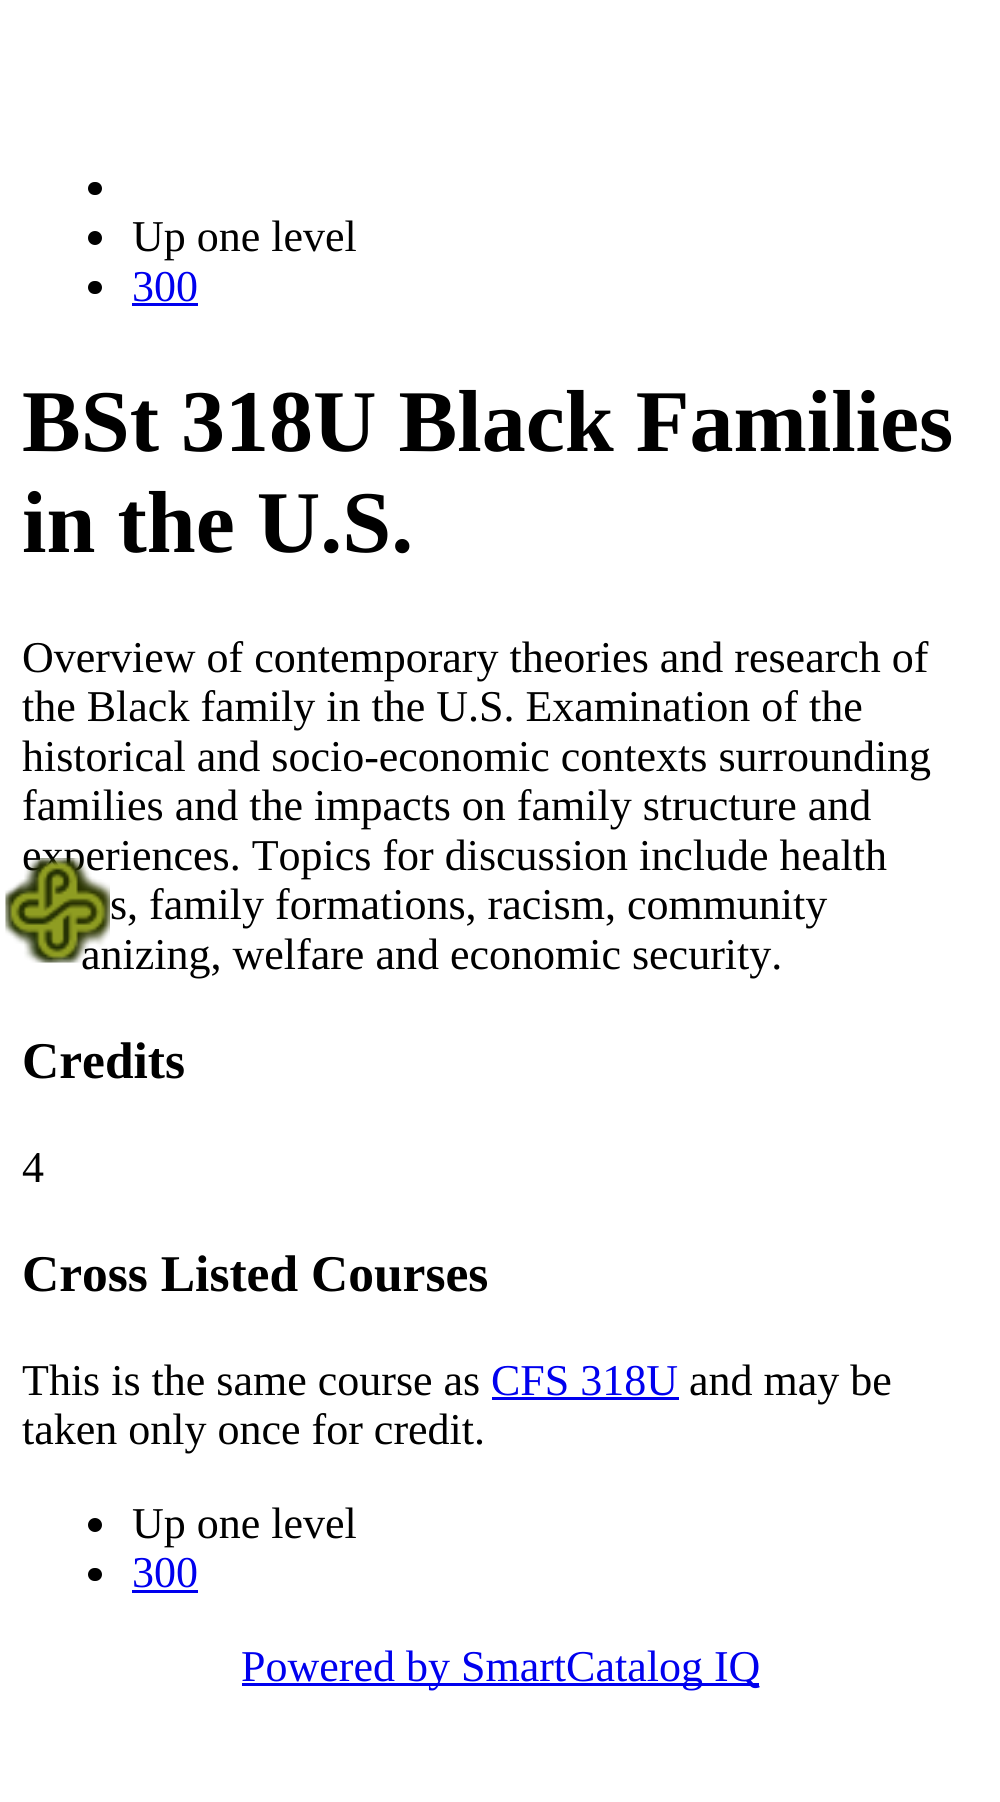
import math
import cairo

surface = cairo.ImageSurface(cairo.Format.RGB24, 1000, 1802)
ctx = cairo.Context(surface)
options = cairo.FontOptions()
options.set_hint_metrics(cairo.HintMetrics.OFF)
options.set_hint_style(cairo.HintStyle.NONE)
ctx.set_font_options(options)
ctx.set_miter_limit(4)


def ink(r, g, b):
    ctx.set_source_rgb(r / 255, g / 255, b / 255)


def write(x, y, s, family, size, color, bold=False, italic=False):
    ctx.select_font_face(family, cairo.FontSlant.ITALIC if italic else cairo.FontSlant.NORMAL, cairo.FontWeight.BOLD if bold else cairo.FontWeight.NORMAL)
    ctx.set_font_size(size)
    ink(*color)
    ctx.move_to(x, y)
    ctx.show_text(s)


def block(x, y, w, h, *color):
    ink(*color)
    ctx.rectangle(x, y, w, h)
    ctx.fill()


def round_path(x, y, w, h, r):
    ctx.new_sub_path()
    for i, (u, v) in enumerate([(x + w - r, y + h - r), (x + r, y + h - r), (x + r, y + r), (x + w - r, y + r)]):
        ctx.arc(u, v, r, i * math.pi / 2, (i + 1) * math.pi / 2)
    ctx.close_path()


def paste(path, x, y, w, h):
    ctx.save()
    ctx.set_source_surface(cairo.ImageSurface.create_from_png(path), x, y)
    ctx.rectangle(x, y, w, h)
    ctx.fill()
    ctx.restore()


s1 = dict(family="Liberation Serif", size=44, color=(0, 0, 0))
s2 = dict(family="Liberation Serif", size=44, color=(0, 0, 238))
s3 = dict(family="Liberation Serif", size=88, color=(0, 0, 0), bold=True)
s4 = dict(family="Liberation Serif", size=51.5, color=(0, 0, 0), bold=True)

ink(255, 255, 255)
ctx.paint()
ink(0, 0, 0)
round_path(88, 182, 14, 13, 6.5)
ctx.fill()
ctx.arc(95, 238, 7, 0, 2 * math.pi)
ctx.fill()
write(132, 251, "Up one level", **s1)
round_path(88, 281, 14, 13, 6.5)
ctx.fill()
write(132, 301, "300", **s2)
block(132, 303, 66, 3, 0, 0, 238)
write(22, 870, "experiences. Topics for discussion include health", **s1)
write(81, 969, "anizing, welfare and economic security.", **s1)
paste("pic1.png", 5, 858, 105, 105)
write(22, 451, "BSt 318U Black Families", **s3)
write(22, 552, "in the U.S.", **s3)
write(22, 672, "Overview of contemporary theories and research of", **s1)
write(22, 721, "the Black family in the U.S. Examination of the", **s1)
write(22, 771, "historical and socio-economic contexts surrounding", **s1)
write(22, 820, "families and the impacts on family structure and", **s1)
write(110, 919, "s, family formations, racism, community", **s1)
write(22, 1078, "Credits", **s4)
write(22, 1182, "4", **s1)
write(22, 1291, "Cross Listed Courses", **s4)
write(22, 1395, "This is the same course as", **s1)
write(491, 1395, "CFS 318U", **s2)
block(492, 1397, 187, 3, 0, 0, 238)
write(689, 1395, "and may be", **s1)
write(22, 1444, "taken only once for credit.", **s1)
ctx.new_path()
ctx.arc(95, 1525, 7, 0, 2 * math.pi)
ctx.fill()
write(132, 1538, "Up one level", **s1)
round_path(88, 1568, 14, 13, 6.5)
ctx.fill()
write(132, 1587, "300", **s2)
block(132, 1590, 66, 3, 0, 0, 238)
block(242, 1683, 517, 3, 0, 0, 238)
write(241, 1681, "Powered by SmartCatalog IQ", **s2)
surface.write_to_png("screenshot.png")
